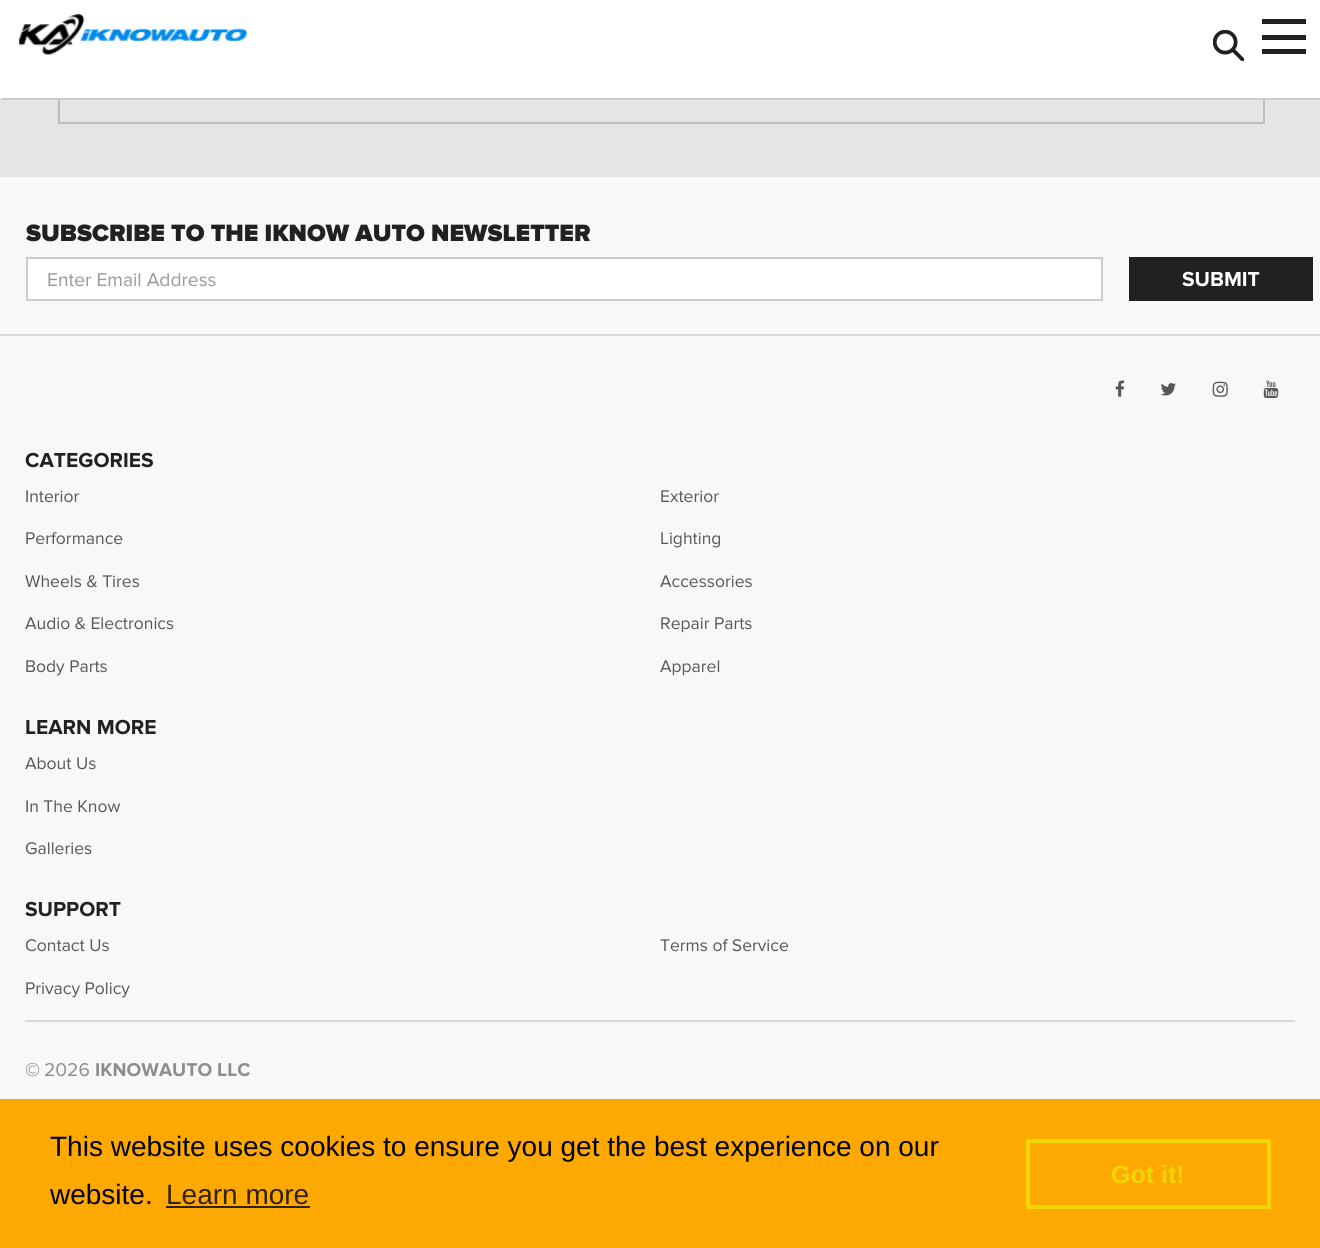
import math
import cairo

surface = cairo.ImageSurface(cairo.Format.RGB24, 1320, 1248)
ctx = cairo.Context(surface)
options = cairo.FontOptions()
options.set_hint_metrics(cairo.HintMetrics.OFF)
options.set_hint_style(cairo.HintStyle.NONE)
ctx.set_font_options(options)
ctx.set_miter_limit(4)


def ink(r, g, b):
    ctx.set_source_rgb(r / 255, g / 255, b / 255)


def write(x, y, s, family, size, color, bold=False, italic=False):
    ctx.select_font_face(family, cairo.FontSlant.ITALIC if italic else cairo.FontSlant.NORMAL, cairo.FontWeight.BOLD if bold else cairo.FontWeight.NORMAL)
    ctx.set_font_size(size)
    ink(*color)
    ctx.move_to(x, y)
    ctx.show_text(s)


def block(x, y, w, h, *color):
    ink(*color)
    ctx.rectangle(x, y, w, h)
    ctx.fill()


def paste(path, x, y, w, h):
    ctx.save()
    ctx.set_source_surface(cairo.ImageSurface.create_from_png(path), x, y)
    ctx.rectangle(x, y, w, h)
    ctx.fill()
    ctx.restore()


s1 = dict(family="Proxima Nova Black", size=24.5, color=(33, 33, 33))
s2 = dict(family="Proxima Nova", size=19.25, color=(153, 153, 153))
s3 = dict(family="Proxima Nova", size=21, color=(255, 255, 255), bold=True)
s4 = dict(family="Proxima Nova", size=21, color=(33, 33, 33), bold=True)
s5 = dict(family="Proxima Nova", size=17.5, color=(87, 87, 87))
s6 = dict(family="Proxima Nova", size=19.25, color=(141, 141, 141), bold=True)
s7 = dict(family="Proxima Nova", size=19.25, color=(141, 141, 141))
s8 = dict(family="Liberation Sans", size=28, color=(0, 0, 0))
s9 = dict(family="Liberation Sans", size=28, color=(51, 34, 0))
s10 = dict(family="Liberation Sans", size=25, color=(241, 214, 0), bold=True)

ink(229, 229, 229)
ctx.paint()
ctx.rectangle(59, 69, 1205, 54)
ink(189, 189, 189)
ctx.stroke()
block(0, 0, 1320, 100, 255, 255, 255)
ink(204, 204, 204)
ctx.new_path()
ctx.move_to(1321, 100)
ctx.line_to(0, 100)
ctx.line_to(2, 98)
ctx.line_to(1320, 98)
ctx.close_path()
ctx.fill()
paste("pic1.png", 19, 13, 228, 42)
paste("pic2.png", 1213, 30, 31, 31)
block(1262, 19, 44, 5, 33, 33, 33)
block(1262, 35, 44, 5, 33, 33, 33)
block(1262, 49, 44, 5, 33, 33, 33)
block(0, 177, 1320, 922, 248, 248, 249)
write(26, 241, "SUBSCRIBE TO THE IKNOW AUTO NEWSLETTER", **s1)
ink(255, 255, 255)
ctx.rectangle(27, 258, 1075, 42)
ctx.fill_preserve()
ink(204, 204, 204)
ctx.stroke()
write(47, 286, "Enter Email Address", **s2)
block(1129, 257, 184, 44, 33, 33, 33)
write(1182, 286, "SUBMIT", **s3)
block(0, 334, 1320, 2, 218, 218, 219)
paste("pic3.png", 1115, 380, 10, 17)
paste("pic4.png", 1160, 383, 16, 13)
paste("pic5.png", 1212, 381, 16, 16)
paste("pic6.png", 1263, 380, 16, 18)
write(25, 467, "CATEGORIES", **s4)
write(25, 502, "Interior", **s5)
write(660, 502, "Exterior", **s5)
write(25, 544, "Performance", **s5)
write(660, 544, "Lighting", **s5)
write(25, 587, "Wheels & Tires", **s5)
write(660, 587, "Accessories", **s5)
write(25, 629, "Audio & Electronics", **s5)
write(660, 629, "Repair Parts", **s5)
write(25, 672, "Body Parts", **s5)
write(660, 672, "Apparel", **s5)
write(25, 734, "LEARN MORE", **s4)
write(25, 769, "About Us", **s5)
write(25, 812, "In The Know", **s5)
write(25, 854, "Galleries", **s5)
write(25, 916, "SUPPORT", **s4)
write(25, 951, "Contact Us", **s5)
write(660, 951, "Terms of Service", **s5)
write(25, 994, "Privacy Policy", **s5)
block(25, 1020, 1270, 2, 216, 216, 217)
write(25, 1076, "©", **s6)
write(44, 1076, "2026", **s7)
write(95, 1076, "IKNOWAUTO LLC", **s6)
block(0, 1099, 1320, 149, 254, 168, 2)
write(50, 1156, "This website uses cookies to ensure you get the best experience on our", **s8)
write(50, 1204, "website.", **s8)
write(166, 1204, "Learn more", **s9)
block(166, 1206, 144, 2, 51, 34, 0)
ctx.rectangle(1028, 1141, 241, 66)
ink(241, 214, 0)
ctx.set_line_width(4)
ctx.stroke()
write(1111, 1183, "Got it!", **s10)
surface.write_to_png("screenshot.png")
